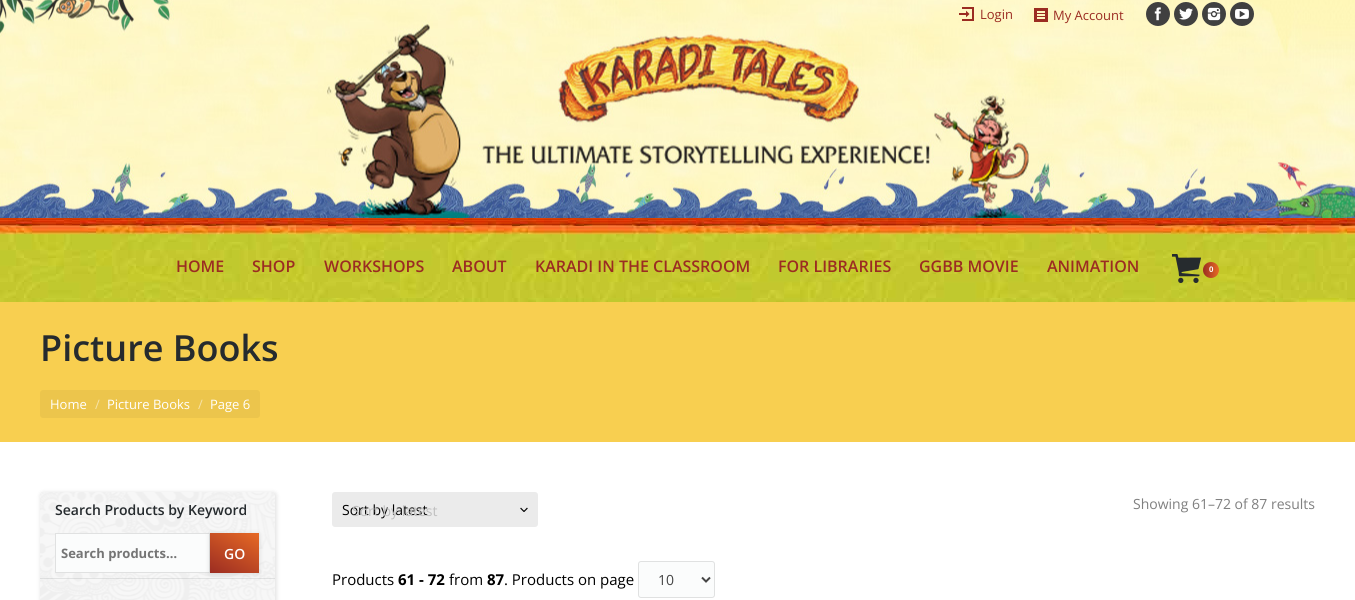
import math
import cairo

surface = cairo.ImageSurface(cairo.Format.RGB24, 1355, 600)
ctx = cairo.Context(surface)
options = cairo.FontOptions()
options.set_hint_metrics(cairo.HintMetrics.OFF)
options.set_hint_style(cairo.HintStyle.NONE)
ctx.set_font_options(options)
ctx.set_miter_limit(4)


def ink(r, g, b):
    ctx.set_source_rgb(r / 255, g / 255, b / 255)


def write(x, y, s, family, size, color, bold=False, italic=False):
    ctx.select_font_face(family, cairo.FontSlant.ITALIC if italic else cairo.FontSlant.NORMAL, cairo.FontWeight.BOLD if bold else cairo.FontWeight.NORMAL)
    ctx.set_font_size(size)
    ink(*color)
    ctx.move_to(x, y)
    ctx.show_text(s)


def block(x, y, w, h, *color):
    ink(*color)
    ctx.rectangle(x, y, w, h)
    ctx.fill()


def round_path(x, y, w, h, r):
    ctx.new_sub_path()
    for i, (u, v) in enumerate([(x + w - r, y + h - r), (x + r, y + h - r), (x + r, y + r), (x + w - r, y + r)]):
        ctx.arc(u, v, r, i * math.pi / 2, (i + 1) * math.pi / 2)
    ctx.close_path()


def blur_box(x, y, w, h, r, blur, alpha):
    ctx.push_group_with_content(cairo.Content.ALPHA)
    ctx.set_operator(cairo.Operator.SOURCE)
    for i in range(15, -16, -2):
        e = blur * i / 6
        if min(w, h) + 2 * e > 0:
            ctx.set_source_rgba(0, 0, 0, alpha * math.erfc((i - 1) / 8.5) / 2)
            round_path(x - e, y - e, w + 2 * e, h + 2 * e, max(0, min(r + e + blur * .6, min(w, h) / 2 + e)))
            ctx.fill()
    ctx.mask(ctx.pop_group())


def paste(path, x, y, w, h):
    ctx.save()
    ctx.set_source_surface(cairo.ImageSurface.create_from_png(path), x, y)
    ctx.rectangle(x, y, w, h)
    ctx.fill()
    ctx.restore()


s1 = dict(family="Open Sans", size=13, color=(155, 44, 34))
s2 = dict(family="Open Sans SemiBold", size=16, color=(155, 44, 34))
s3 = dict(family="Liberation Sans", size=8, color=(255, 255, 255), bold=True)
s4 = dict(family="Open Sans SemiBold", size=36, color=(38, 43, 46))
s5 = dict(family="Open Sans", size=13, color=(255, 255, 255))
s6 = dict(family="Open Sans", size=13, color=(246, 226, 166))
s7 = dict(family="Open Sans SemiBold", size=14, color=(38, 43, 46))
s8 = dict(family="Open Sans", size=13, color=(117, 117, 117), bold=True)
s9 = dict(family="Open Sans SemiBold", size=14, color=(255, 255, 255))
s10 = dict(family="Open Sans", size=14, color=(0, 0, 0))
s11 = dict(family="Open Sans", size=14, color=(191, 191, 191))
s12 = dict(family="Open Sans", size=14, color=(128, 128, 128))
s13 = dict(family="Open Sans", size=15, color=(0, 0, 0))
s14 = dict(family="Open Sans", size=15, color=(0, 0, 0), bold=True)
s15 = dict(family="Open Sans", size=14, color=(68, 68, 68))

ink(255, 255, 255)
ctx.paint()
paste("pic1.png", 0, 0, 1355, 218)
paste("pic2.png", 959, 7, 15, 14)
write(980, 19, "Login", **s1)
paste("pic3.png", 1034, 8, 14, 14)
write(1053, 20, "My Account", **s1)
ink(64, 64, 64)
ctx.new_path()
ctx.arc(1158, 14, 12, 0, 2 * math.pi)
ctx.fill()
paste("pic4.png", 1154, 7, 7, 14)
ctx.arc(1186, 14, 12, 0, 2 * math.pi)
ctx.fill()
paste("pic5.png", 1179, 8, 14, 12)
ctx.arc(1214, 14, 12, 0, 2 * math.pi)
ctx.fill()
paste("pic6.png", 1207, 7, 14, 14)
ctx.arc(1242, 14, 12, 0, 2 * math.pi)
ctx.fill()
paste("pic7.png", 1235, 8, 14, 11)
paste("pic8.png", 0, 218, 1355, 84)
write(176, 272, "HOME", **s2)
write(252, 272, "SHOP", **s2)
write(324, 272, "WORKSHOPS", **s2)
write(452, 272, "ABOUT", **s2)
write(535, 272, "KARADI IN THE CLASSROOM", **s2)
write(778, 272, "FOR LIBRARIES", **s2)
write(919, 272, "GGBB MOVIE", **s2)
write(1047, 272, "ANIMATION", **s2)
paste("pic9.png", 1172, 254, 29, 29)
gradient = cairo.LinearGradient(1203, 270, 1219, 270)
gradient.add_color_stop_rgba(0, 0.608, 0.173, 0.133, 1)
gradient.add_color_stop_rgba(1, 0.906, 0.416, 0.145, 1)
ctx.set_source(gradient)
ctx.arc(1211, 270, 8, 0, 2 * math.pi)
ctx.fill()
write(1209, 272, "0", **s3)
block(0, 302, 1355, 140, 248, 207, 80)
write(40, 361, "Picture Books", **s4)
ink(236, 197, 76)
round_path(40, 390, 220, 28, 3)
ctx.fill()
write(50, 409, "Home", **s5)
write(95, 409, "/", **s6)
write(107, 409, "Picture Books", **s5)
write(198, 409, "/", **s6)
write(210, 409, "Page 6", **s5)
ink(0, 0, 0)
blur_box(40, 492, 237, 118, 4, 2, 0.1)
paste("pic10.png", 40, 492, 235, 108)
write(55, 515, "Search Products by Keyword", **s7)
ink(251, 252, 252)
ctx.rectangle(55.5, 533.5, 154, 39)
ctx.fill_preserve()
ink(224, 225, 225)
ctx.set_line_width(1)
ctx.stroke()
write(61, 558, "Search products…", **s8)
ctx.set_source_rgba(0.404, 0.42, 0.427, 0.15)
ctx.rectangle(40, 578, 235, 1)
ctx.fill()
ink(0, 0, 0)
blur_box(210, 534, 49, 40, 0, 3, 0.12)
gradient = cairo.LinearGradient(220, 579, 249, 527)
gradient.add_color_stop_rgba(0, 0.608, 0.173, 0.133, 1)
gradient.add_color_stop_rgba(1, 0.906, 0.416, 0.145, 1)
ctx.set_source(gradient)
ctx.rectangle(210, 533, 49, 40)
ctx.fill()
write(224, 559, "GO", **s9)
ink(235, 235, 235)
round_path(332, 492, 206, 35, 3)
ctx.fill()
paste("pic11.png", 520, 507, 8, 5)
write(342, 515, "Sort by latest", **s10)
write(352, 516, "Sort by latest", **s11)
write(1133, 509, "Showing 61–72 of 87 results", **s12)
write(332, 585, "Products", **s13)
write(398, 585, "61 - 72", **s14)
write(449, 585, "from", **s13)
write(487, 585, "87", **s14)
write(504, 585, ". Products on page", **s13)
ink(251, 252, 252)
round_path(638.5, 561.5, 76, 36, 2.5)
ctx.fill_preserve()
ink(224, 225, 225)
ctx.stroke()
ctx.new_path()
ctx.move_to(702, 577.5)
ctx.line_to(706, 581.5)
ctx.line_to(710, 577.5)
ink(68, 68, 68)
ctx.set_line_width(2)
ctx.stroke()
write(658, 585, "10", **s15)
surface.write_to_png("screenshot.png")
